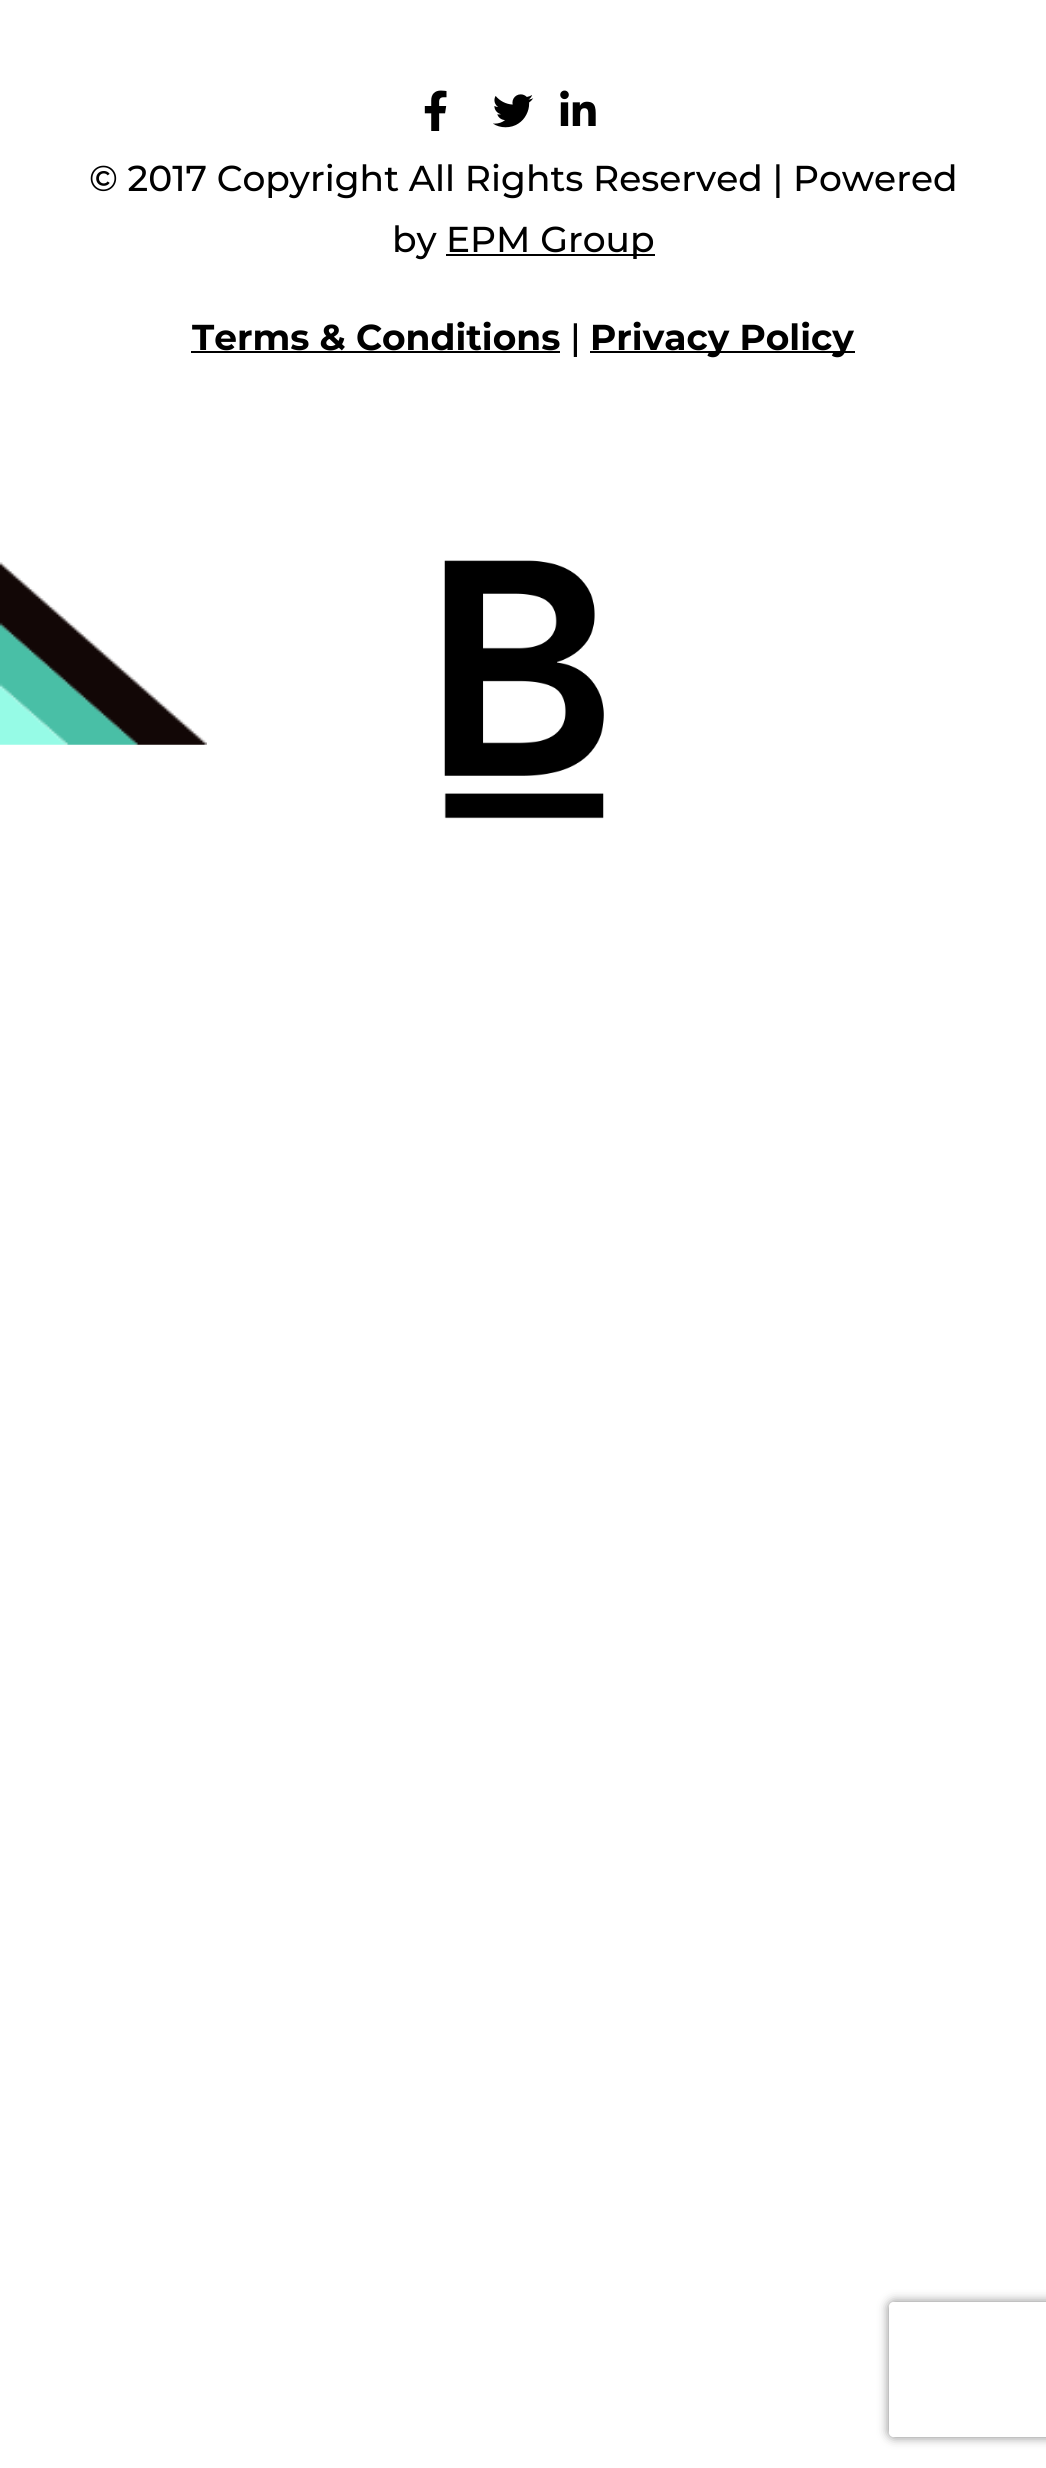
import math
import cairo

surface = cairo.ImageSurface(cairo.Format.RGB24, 1046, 2468)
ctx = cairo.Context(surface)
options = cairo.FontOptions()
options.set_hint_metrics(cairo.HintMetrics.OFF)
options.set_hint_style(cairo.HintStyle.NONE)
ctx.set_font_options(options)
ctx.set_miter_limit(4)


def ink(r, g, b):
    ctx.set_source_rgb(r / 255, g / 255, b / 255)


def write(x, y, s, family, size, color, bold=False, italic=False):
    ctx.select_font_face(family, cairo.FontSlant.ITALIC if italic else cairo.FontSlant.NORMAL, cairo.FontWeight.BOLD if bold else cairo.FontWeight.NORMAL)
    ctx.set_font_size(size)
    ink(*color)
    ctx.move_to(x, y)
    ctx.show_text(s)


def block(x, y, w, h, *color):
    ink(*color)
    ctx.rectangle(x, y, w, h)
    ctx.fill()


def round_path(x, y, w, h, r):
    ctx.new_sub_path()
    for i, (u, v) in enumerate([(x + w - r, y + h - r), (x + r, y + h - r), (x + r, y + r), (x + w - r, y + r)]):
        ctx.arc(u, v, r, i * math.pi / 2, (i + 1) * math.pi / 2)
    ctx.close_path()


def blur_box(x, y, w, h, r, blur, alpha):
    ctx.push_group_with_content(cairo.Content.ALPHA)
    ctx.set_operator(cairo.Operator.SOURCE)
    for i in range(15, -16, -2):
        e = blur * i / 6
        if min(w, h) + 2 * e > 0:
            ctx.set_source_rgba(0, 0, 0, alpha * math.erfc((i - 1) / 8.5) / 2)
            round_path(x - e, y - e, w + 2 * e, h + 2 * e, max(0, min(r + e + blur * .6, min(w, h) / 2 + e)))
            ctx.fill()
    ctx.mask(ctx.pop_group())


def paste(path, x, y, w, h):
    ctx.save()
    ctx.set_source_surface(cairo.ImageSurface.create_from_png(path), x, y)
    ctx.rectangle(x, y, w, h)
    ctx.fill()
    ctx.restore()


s1 = dict(family="Montserrat Medium", size=36, color=(0, 0, 0))
s2 = dict(family="Montserrat", size=36, color=(0, 0, 0), bold=True)

ink(255, 255, 255)
ctx.paint()
paste("pic1.png", 424, 90, 23, 41)
paste("pic2.png", 493, 94, 41, 34)
paste("pic3.png", 560, 90, 36, 36)
write(89, 191, "© 2017 Copyright All Rights Reserved | Powered", **s1)
write(392, 252, "by", **s1)
block(446, 254, 209, 2, 0, 0, 0)
write(446, 252, "EPM Group", **s1)
write(192, 350, "Terms & Conditions", **s2)
block(191, 351, 369, 2, 0, 0, 0)
write(570, 350, "|", **s1)
block(590, 351, 265, 2, 0, 0, 0)
write(590, 350, "Privacy Policy", **s2)
paste("pic4.png", 0, 562, 207, 183)
paste("pic5.png", 444, 560, 160, 259)
ctx.save()
ctx.set_fill_rule(cairo.FillRule.EVEN_ODD)
ctx.new_path()
ctx.move_to(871, 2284)
ctx.line_to(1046, 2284)
ctx.line_to(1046, 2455)
ctx.line_to(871, 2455)
ctx.close_path()
ctx.move_to(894, 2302)
ctx.line_to(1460, 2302)
ctx.curve_to(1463, 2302, 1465, 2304, 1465, 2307)
ctx.line_to(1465, 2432)
ctx.curve_to(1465, 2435, 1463, 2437, 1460, 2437)
ctx.line_to(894, 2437)
ctx.curve_to(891, 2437, 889, 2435, 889, 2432)
ctx.line_to(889, 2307)
ctx.curve_to(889, 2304, 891, 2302, 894, 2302)
ctx.close_path()
ctx.clip()
ink(128, 128, 128)
blur_box(889, 2302, 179, 135, 5, 5.5, 1)
ctx.restore()
surface.write_to_png("screenshot.png")
